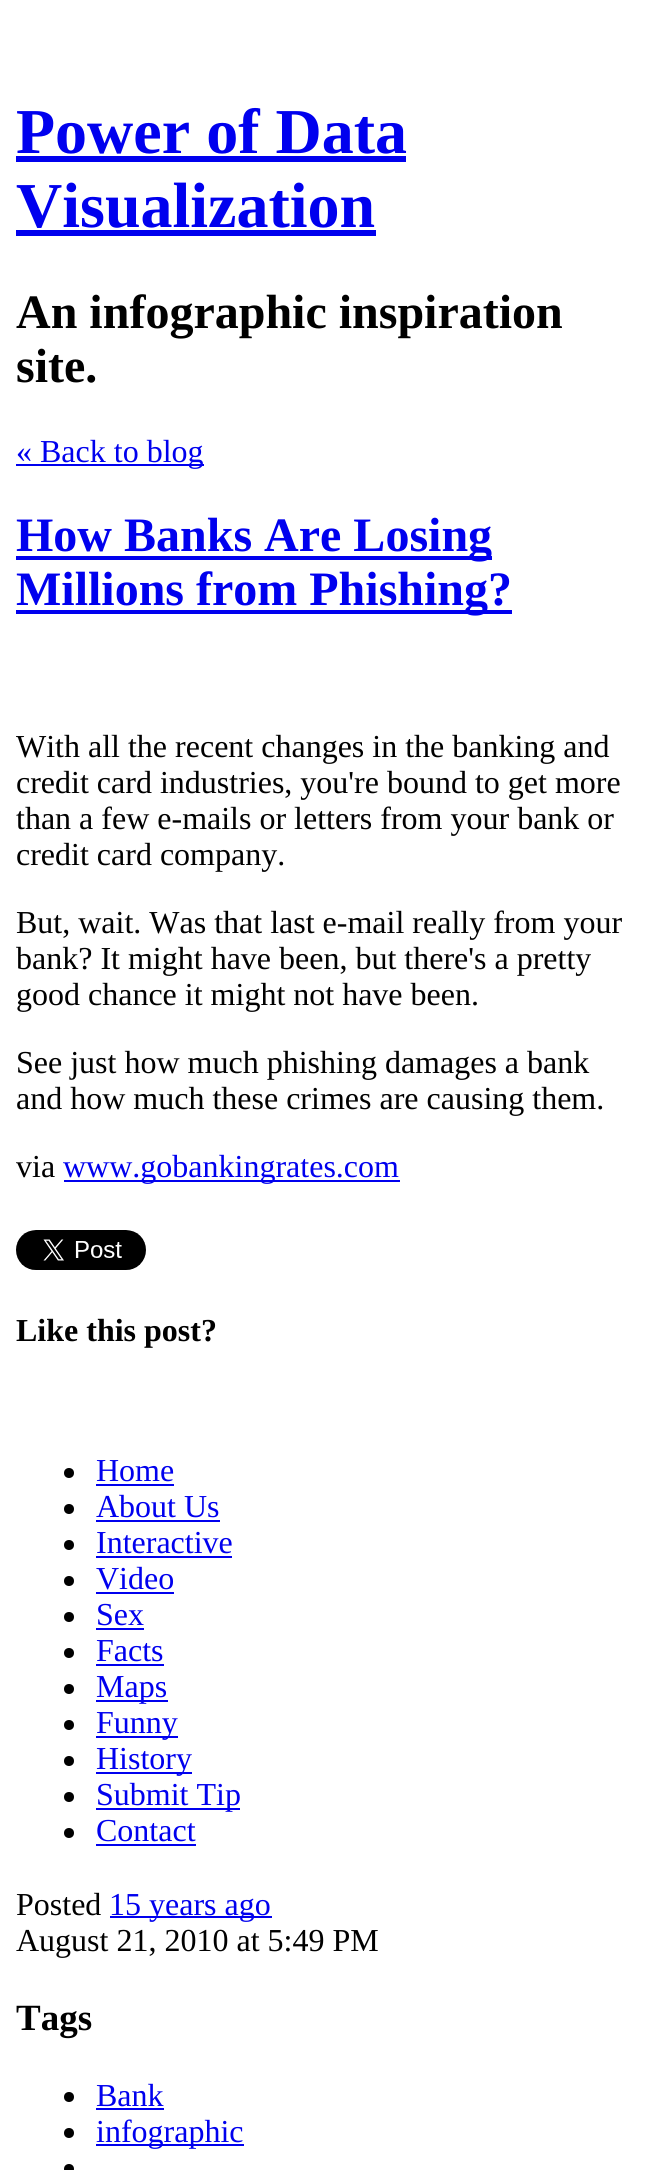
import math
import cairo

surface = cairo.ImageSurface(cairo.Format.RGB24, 655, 2170)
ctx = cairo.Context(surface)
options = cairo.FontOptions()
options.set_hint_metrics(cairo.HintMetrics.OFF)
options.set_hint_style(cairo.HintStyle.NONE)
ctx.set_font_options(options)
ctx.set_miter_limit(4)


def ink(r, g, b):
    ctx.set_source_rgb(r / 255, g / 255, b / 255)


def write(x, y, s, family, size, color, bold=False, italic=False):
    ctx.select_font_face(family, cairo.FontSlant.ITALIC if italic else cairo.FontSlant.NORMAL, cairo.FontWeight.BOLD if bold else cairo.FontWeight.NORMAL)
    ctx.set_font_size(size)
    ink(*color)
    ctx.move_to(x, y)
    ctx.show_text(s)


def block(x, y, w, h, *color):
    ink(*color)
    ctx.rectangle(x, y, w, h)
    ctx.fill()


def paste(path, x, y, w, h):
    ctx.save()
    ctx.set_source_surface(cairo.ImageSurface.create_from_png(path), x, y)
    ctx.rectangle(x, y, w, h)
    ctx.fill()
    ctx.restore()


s1 = dict(family="Liberation Serif", size=64, color=(0, 0, 238), bold=True)
s2 = dict(family="Liberation Serif", size=48, color=(0, 0, 0), bold=True)
s3 = dict(family="Liberation Serif", size=32, color=(0, 0, 238))
s4 = dict(family="Liberation Serif", size=48, color=(0, 0, 238), bold=True)
s5 = dict(family="Liberation Serif", size=32, color=(0, 0, 0))
s6 = dict(family="Liberation Serif", size=32, color=(0, 0, 0), bold=True)
s7 = dict(family="Liberation Serif", size=37, color=(0, 0, 0), bold=True)

ink(255, 255, 255)
ctx.paint()
write(16, 153, "Power of Data", **s1)
block(16, 156, 390, 6, 0, 0, 238)
write(16, 227, "Visualization", **s1)
block(16, 230, 360, 6, 0, 0, 238)
write(16, 328, "An infographic inspiration", **s2)
write(16, 382, "site.", **s2)
block(16, 464, 188, 2, 0, 0, 238)
write(16, 462, "« Back to blog", **s3)
block(16, 556, 476, 4, 0, 0, 238)
write(16, 551, "How Banks Are Losing", **s4)
block(16, 610, 496, 4, 0, 0, 238)
write(16, 605, "Millions from Phishing?", **s4)
write(16, 757, "With all the recent changes in the banking and", **s5)
write(16, 793, "credit card industries, you're bound to get more", **s5)
write(16, 829, "than a few e-mails or letters from your bank or", **s5)
write(16, 865, "credit card company.", **s5)
write(16, 933, "But, wait. Was that last e-mail really from your", **s5)
write(16, 969, "bank? It might have been, but there's a pretty", **s5)
write(16, 1005, "good chance it might not have been.", **s5)
write(16, 1073, "See just how much phishing damages a bank", **s5)
write(16, 1109, "and how much these crimes are causing them.", **s5)
write(16, 1177, "via", **s5)
block(64, 1180, 336, 2, 0, 0, 238)
write(63, 1177, "www.gobankingrates.com", **s3)
paste("pic1.png", 16, 1230, 130, 40)
write(16, 1341, "Like this post?", **s6)
ctx.new_path()
ctx.arc(69, 1473, 5, 0, 2 * math.pi)
ctx.fill()
write(96, 1481, "Home", **s3)
block(96, 1484, 78, 2, 0, 0, 238)
ink(0, 0, 0)
ctx.new_path()
ctx.arc(69, 1509, 5, 0, 2 * math.pi)
ctx.fill()
write(96, 1517, "About Us", **s3)
block(96, 1520, 124, 2, 0, 0, 238)
ink(0, 0, 0)
ctx.new_path()
ctx.arc(69, 1545, 5, 0, 2 * math.pi)
ctx.fill()
write(96, 1553, "Interactive", **s3)
block(96, 1556, 136, 2, 0, 0, 238)
ink(0, 0, 0)
ctx.new_path()
ctx.arc(69, 1581, 5, 0, 2 * math.pi)
ctx.fill()
write(96, 1589, "Video", **s3)
block(96, 1592, 78, 2, 0, 0, 238)
ink(0, 0, 0)
ctx.new_path()
ctx.arc(69, 1617, 5, 0, 2 * math.pi)
ctx.fill()
write(96, 1625, "Sex", **s3)
block(96, 1628, 48, 2, 0, 0, 238)
ink(0, 0, 0)
ctx.new_path()
ctx.arc(69, 1653, 5, 0, 2 * math.pi)
ctx.fill()
write(96, 1661, "Facts", **s3)
block(96, 1664, 68, 2, 0, 0, 238)
ink(0, 0, 0)
ctx.new_path()
ctx.arc(69, 1689, 5, 0, 2 * math.pi)
ctx.fill()
block(96, 1700, 72, 2, 0, 0, 238)
write(96, 1697, "Maps", **s3)
ink(0, 0, 0)
ctx.new_path()
ctx.arc(69, 1725, 5, 0, 2 * math.pi)
ctx.fill()
block(96, 1736, 82, 2, 0, 0, 238)
write(96, 1733, "Funny", **s3)
ink(0, 0, 0)
ctx.new_path()
ctx.arc(69, 1761, 5, 0, 2 * math.pi)
ctx.fill()
block(96, 1772, 96, 2, 0, 0, 238)
write(96, 1769, "History", **s3)
ink(0, 0, 0)
ctx.new_path()
ctx.arc(69, 1797, 5, 0, 2 * math.pi)
ctx.fill()
block(96, 1808, 144, 2, 0, 0, 238)
write(96, 1805, "Submit Tip", **s3)
ink(0, 0, 0)
ctx.new_path()
ctx.arc(69, 1833, 5, 0, 2 * math.pi)
ctx.fill()
write(96, 1841, "Contact", **s3)
block(96, 1844, 100, 2, 0, 0, 238)
write(16, 1915, "Posted", **s5)
block(110, 1916, 162, 2, 0, 0, 238)
write(109, 1915, "15 years ago", **s3)
write(16, 1951, "August 21, 2010 at 5:49 PM", **s5)
write(16, 2030, "Tags", **s7)
ctx.new_path()
ctx.arc(69, 2097, 5, 0, 2 * math.pi)
ctx.fill()
write(96, 2106, "Bank", **s3)
block(96, 2108, 68, 2, 0, 0, 238)
ink(0, 0, 0)
ctx.new_path()
ctx.arc(69, 2133, 5, 0, 2 * math.pi)
ctx.fill()
block(96, 2144, 148, 2, 0, 0, 238)
write(96, 2142, "infographic", **s3)
ink(0, 0, 0)
ctx.new_path()
ctx.arc(69, 2169, 5, 0, 2 * math.pi)
ctx.fill()
surface.write_to_png("screenshot.png")
